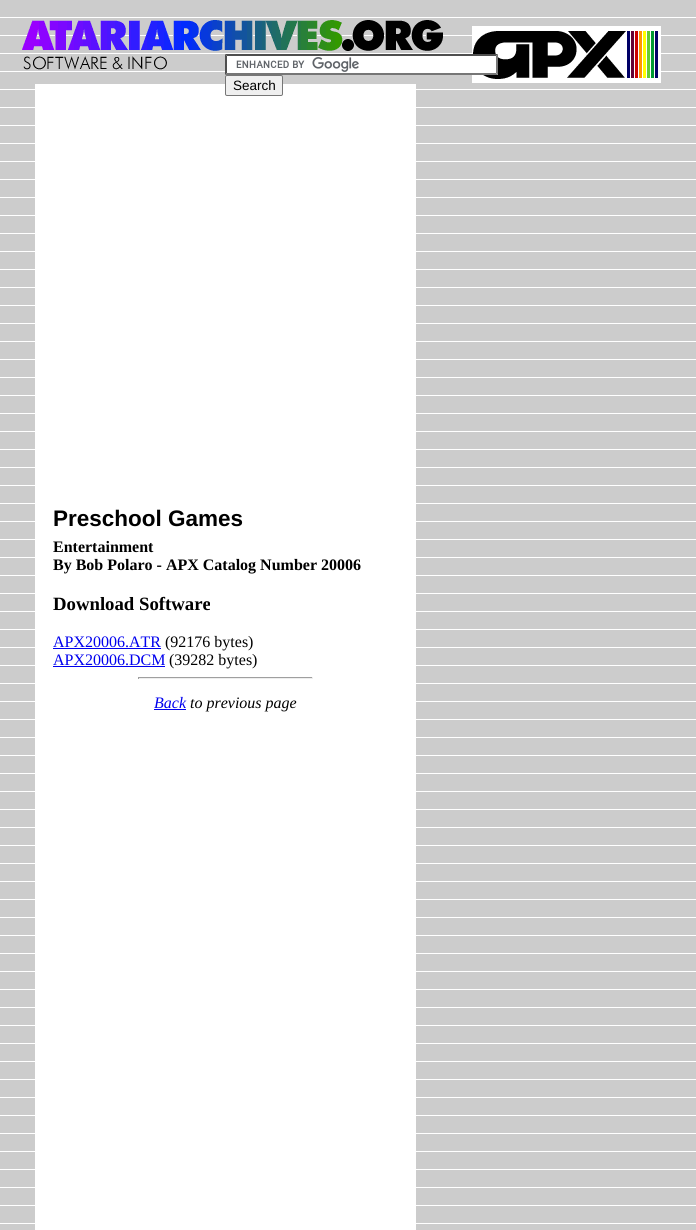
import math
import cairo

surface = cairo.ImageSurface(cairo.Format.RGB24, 696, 1230)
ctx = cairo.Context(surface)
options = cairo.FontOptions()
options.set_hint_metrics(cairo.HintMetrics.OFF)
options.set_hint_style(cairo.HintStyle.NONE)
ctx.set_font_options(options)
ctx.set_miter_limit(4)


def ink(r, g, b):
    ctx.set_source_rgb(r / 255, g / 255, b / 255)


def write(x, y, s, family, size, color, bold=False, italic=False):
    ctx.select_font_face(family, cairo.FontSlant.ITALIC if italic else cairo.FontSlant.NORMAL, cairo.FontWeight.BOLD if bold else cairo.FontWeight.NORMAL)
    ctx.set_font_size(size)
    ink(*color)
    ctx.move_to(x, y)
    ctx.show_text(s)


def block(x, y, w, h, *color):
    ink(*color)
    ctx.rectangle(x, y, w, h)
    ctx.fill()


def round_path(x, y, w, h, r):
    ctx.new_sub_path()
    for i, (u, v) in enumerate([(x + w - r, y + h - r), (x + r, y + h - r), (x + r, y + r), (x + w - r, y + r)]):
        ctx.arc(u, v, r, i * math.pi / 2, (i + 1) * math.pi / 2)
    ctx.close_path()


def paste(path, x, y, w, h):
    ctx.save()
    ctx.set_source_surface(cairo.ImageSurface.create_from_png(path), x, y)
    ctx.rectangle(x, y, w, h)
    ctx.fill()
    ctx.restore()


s1 = dict(family="Liberation Sans", size=13.5, color=(0, 0, 0))
s2 = dict(family="Liberation Sans", size=22.5, color=(0, 0, 0), bold=True)
s3 = dict(family="Liberation Serif", size=16, color=(0, 0, 0), bold=True)
s4 = dict(family="Liberation Serif", size=18.75, color=(0, 0, 0), bold=True)
s5 = dict(family="Liberation Serif", size=16, color=(0, 0, 238))
s6 = dict(family="Liberation Serif", size=16, color=(0, 0, 0))
s7 = dict(family="Liberation Serif", size=16, color=(0, 0, 238), italic=True)
s8 = dict(family="Liberation Serif", size=16, color=(0, 0, 0), italic=True)

ink(255, 255, 255)
ctx.paint()
paste("pic1.png", 0, 0, 696, 1230)
paste("pic2.png", 22, 20, 421, 50)
paste("pic3.png", 472, 26, 189, 57)
block(35, 84, 381, 1146, 255, 255, 255)
block(225, 54, 273, 21, 255, 255, 255)
paste("pic4.png", 236, 57, 123, 15)
ink(79, 79, 79)
ctx.new_path()
ctx.move_to(225, 54)
ctx.line_to(498, 54)
ctx.line_to(496, 56)
ctx.line_to(227, 56)
ctx.close_path()
ctx.fill()
ink(118, 118, 118)
ctx.new_path()
ctx.move_to(498, 54)
ctx.line_to(498, 75)
ctx.line_to(496, 73)
ctx.line_to(496, 56)
ctx.close_path()
ctx.fill()
ctx.new_path()
ctx.move_to(498, 75)
ctx.line_to(225, 75)
ctx.line_to(227, 73)
ctx.line_to(496, 73)
ctx.close_path()
ctx.fill()
ink(79, 79, 79)
ctx.new_path()
ctx.move_to(225, 75)
ctx.line_to(225, 54)
ctx.line_to(227, 56)
ctx.line_to(227, 73)
ctx.close_path()
ctx.fill()
ink(239, 239, 239)
round_path(225.5, 75.5, 57, 20, 1.5)
ctx.fill_preserve()
ink(118, 118, 118)
ctx.set_line_width(1)
ctx.stroke()
write(233, 90, "Search", **s1)
write(53, 526, "Preschool Games", **s2)
write(53, 552, "Entertainment", **s3)
write(53, 570, "By Bob Polaro - APX Catalog Number 20006", **s3)
write(53, 610, "Download Software", **s4)
write(53, 647, "APX20006.ATR", **s5)
block(53, 648, 108, 1, 0, 0, 238)
write(165, 647, "(92176 bytes)", **s6)
write(53, 665, "APX20006.DCM", **s5)
block(53, 666, 112, 1, 0, 0, 238)
write(169, 665, "(39282 bytes)", **s6)
block(138, 677, 175, 1, 159, 159, 159)
block(312, 677, 1, 2, 238, 238, 238)
block(138, 678, 175, 1, 238, 238, 238)
block(138, 677, 1, 2, 159, 159, 159)
write(154, 708, "Back", **s7)
block(154, 709, 32, 1, 0, 0, 238)
write(190, 708, "to previous page", **s8)
surface.write_to_png("screenshot.png")
